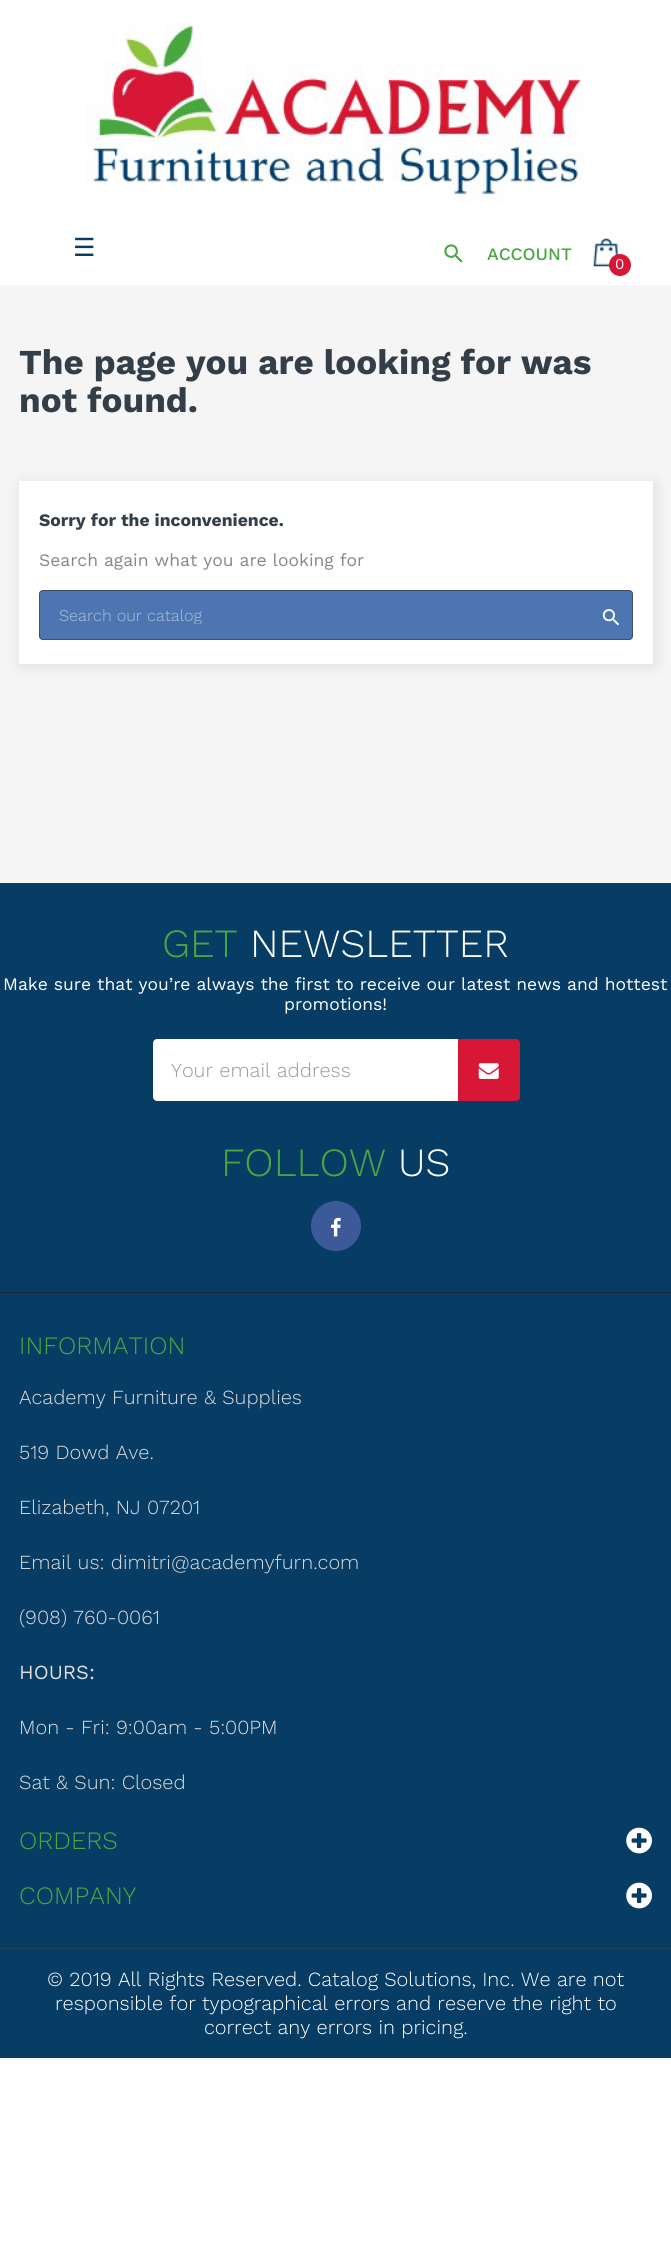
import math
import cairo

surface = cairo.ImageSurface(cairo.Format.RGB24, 671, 2254)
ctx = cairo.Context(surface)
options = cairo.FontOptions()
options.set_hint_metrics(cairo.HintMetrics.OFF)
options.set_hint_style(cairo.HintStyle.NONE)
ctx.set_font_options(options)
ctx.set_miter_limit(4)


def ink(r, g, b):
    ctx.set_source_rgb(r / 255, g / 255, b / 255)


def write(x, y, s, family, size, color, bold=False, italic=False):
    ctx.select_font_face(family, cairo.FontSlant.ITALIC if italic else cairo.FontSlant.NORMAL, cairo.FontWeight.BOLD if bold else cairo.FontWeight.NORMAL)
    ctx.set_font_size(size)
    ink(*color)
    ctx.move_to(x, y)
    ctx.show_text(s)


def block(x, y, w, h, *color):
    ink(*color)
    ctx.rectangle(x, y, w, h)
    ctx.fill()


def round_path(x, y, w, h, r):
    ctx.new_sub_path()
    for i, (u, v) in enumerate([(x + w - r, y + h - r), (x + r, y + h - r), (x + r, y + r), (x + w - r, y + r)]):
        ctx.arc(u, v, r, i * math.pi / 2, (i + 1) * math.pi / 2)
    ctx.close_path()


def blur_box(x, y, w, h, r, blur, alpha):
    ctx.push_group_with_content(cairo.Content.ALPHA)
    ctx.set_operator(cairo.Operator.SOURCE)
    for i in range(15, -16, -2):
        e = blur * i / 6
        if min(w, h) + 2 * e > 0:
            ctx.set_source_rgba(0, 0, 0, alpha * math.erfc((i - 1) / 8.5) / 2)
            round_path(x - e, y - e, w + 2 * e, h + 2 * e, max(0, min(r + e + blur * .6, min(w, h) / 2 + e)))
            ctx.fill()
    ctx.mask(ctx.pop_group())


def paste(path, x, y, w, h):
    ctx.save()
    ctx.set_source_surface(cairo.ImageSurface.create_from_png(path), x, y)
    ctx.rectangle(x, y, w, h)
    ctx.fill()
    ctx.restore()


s1 = dict(family="DejaVu Sans", size=25, color=(7, 60, 100))
s2 = dict(family="Work Sans Medium", size=17.5, color=(74, 166, 65))
s3 = dict(family="Work Sans", size=15, color=(255, 255, 255))
s4 = dict(family="Work Sans", size=35, color=(51, 62, 72), bold=True)
s5 = dict(family="Work Sans", size=17.5, color=(51, 62, 72), bold=True)
s6 = dict(family="Work Sans", size=17.5, color=(135, 135, 135))
s7 = dict(family="Work Sans Light", size=16.25, color=(173, 192, 219))
s8 = dict(family="Work Sans Light", size=40, color=(74, 166, 65))
s9 = dict(family="Work Sans Light", size=40, color=(255, 255, 255))
s10 = dict(family="Work Sans", size=17.5, color=(255, 255, 255))
s11 = dict(family="Work Sans Light", size=20, color=(153, 153, 153))
s12 = dict(family="Work Sans Light", size=25, color=(74, 166, 65))
s13 = dict(family="Work Sans Light", size=20, color=(221, 221, 221))
s14 = dict(family="Work Sans", size=20, color=(221, 221, 221))
s15 = dict(family="Work Sans Light", size=20, color=(255, 255, 255))

ink(255, 255, 255)
ctx.paint()
paste("pic1.png", 84, 22, 500, 181)
write(73, 256, "☰", **s1)
paste("pic2.png", 444, 244, 19, 19)
write(487, 260, "ACCOUNT", **s2)
paste("pic3.png", 593, 238, 26, 29)
ink(216, 23, 54)
ctx.arc(620, 265, 11, 0, 2 * math.pi)
ctx.fill()
write(615, 269, "0", **s3)
block(0, 285, 671, 598, 245, 245, 245)
write(19, 374, "The page you are looking for was", **s4)
write(19, 412, "not found.", **s4)
ink(0, 0, 0)
blur_box(21, 484, 634, 182, 0, 7, 0.1)
block(19, 481, 634, 183, 255, 255, 255)
write(39, 526, "Sorry for the inconvenience.", **s5)
write(39, 566, "Search again what you are looking for", **s6)
ink(77, 117, 177)
round_path(39, 590, 594, 50, 4)
ctx.fill()
round_path(39.5, 590.5, 593, 49, 3.5)
ctx.set_source_rgba(0.224, 0.22, 0.22, 0.6)
ctx.set_line_width(1)
ctx.stroke()
ctx.save()
ctx.rectangle(59, 605, 516, 19)
ctx.clip()
write(59, 621, "Search our catalog", **s7)
ctx.restore()
paste("pic4.png", 602, 609, 18, 17)
block(0, 1292, 671, 1, 34, 34, 34)
block(0, 1291, 671, 1, 51, 51, 51)
block(0, 883, 671, 408, 7, 60, 100)
write(162, 957, "GET", **s8)
write(250, 957, "NEWSLETTER", **s9)
write(3, 990, "Make sure that you’re always the first to receive our latest news and hottest", **s10)
write(284, 1010, "promotions!", **s10)
ctx.new_path()
ctx.move_to(157, 1039)
ctx.line_to(458, 1039)
ctx.line_to(458, 1101)
ctx.line_to(157, 1101)
ctx.curve_to(155, 1101, 153, 1099, 153, 1097)
ctx.line_to(153, 1043)
ctx.curve_to(153, 1041, 155, 1039, 157, 1039)
ctx.close_path()
ctx.fill()
write(171, 1077, "Your email address", **s11)
ink(216, 23, 54)
ctx.new_path()
ctx.move_to(458, 1039)
ctx.line_to(516, 1039)
ctx.curve_to(518, 1039, 520, 1041, 520, 1043)
ctx.line_to(520, 1097)
ctx.curve_to(520, 1099, 518, 1101, 516, 1101)
ctx.line_to(458, 1101)
ctx.close_path()
ctx.fill()
paste("pic5.png", 478, 1063, 21, 16)
write(221, 1176, "FOLLOW", **s8)
write(398, 1176, "US", **s9)
ink(60, 90, 152)
ctx.new_path()
ctx.arc(336, 1226, 24.5, 0, 2 * math.pi)
ctx.fill_preserve()
ctx.stroke()
paste("pic6.png", 331, 1217, 10, 20)
block(0, 1293, 671, 655, 7, 60, 100)
write(19, 1354, "INFORMATION", **s12)
write(19, 1404, "Academy Furniture & Supplies", **s13)
write(19, 1459, "519 Dowd Ave.", **s13)
write(19, 1514, "Elizabeth, NJ 07201", **s13)
write(19, 1569, "Email us: dimitri@academyfurn.com", **s13)
write(19, 1624, "(908) 760-0061", **s13)
write(19, 1679, "HOURS:", **s14)
write(19, 1734, "Mon - Fri: 9:00am - 5:00PM", **s13)
write(19, 1789, "Sat & Sun: Closed", **s13)
write(19, 1849, "ORDERS", **s12)
paste("pic7.png", 626, 1827, 26, 27)
write(19, 1904, "COMPANY", **s12)
paste("pic7.png", 626, 1882, 26, 27)
block(0, 1949, 671, 109, 7, 60, 100)
block(0, 1948, 671, 1, 40, 61, 77)
write(47, 1986, "© 2019 All Rights Reserved. Catalog Solutions, Inc. We are not", **s15)
write(55, 2010, "responsible for typographical errors and reserve the right to", **s15)
write(204, 2034, "correct any errors in pricing.", **s15)
surface.write_to_png("screenshot.png")
